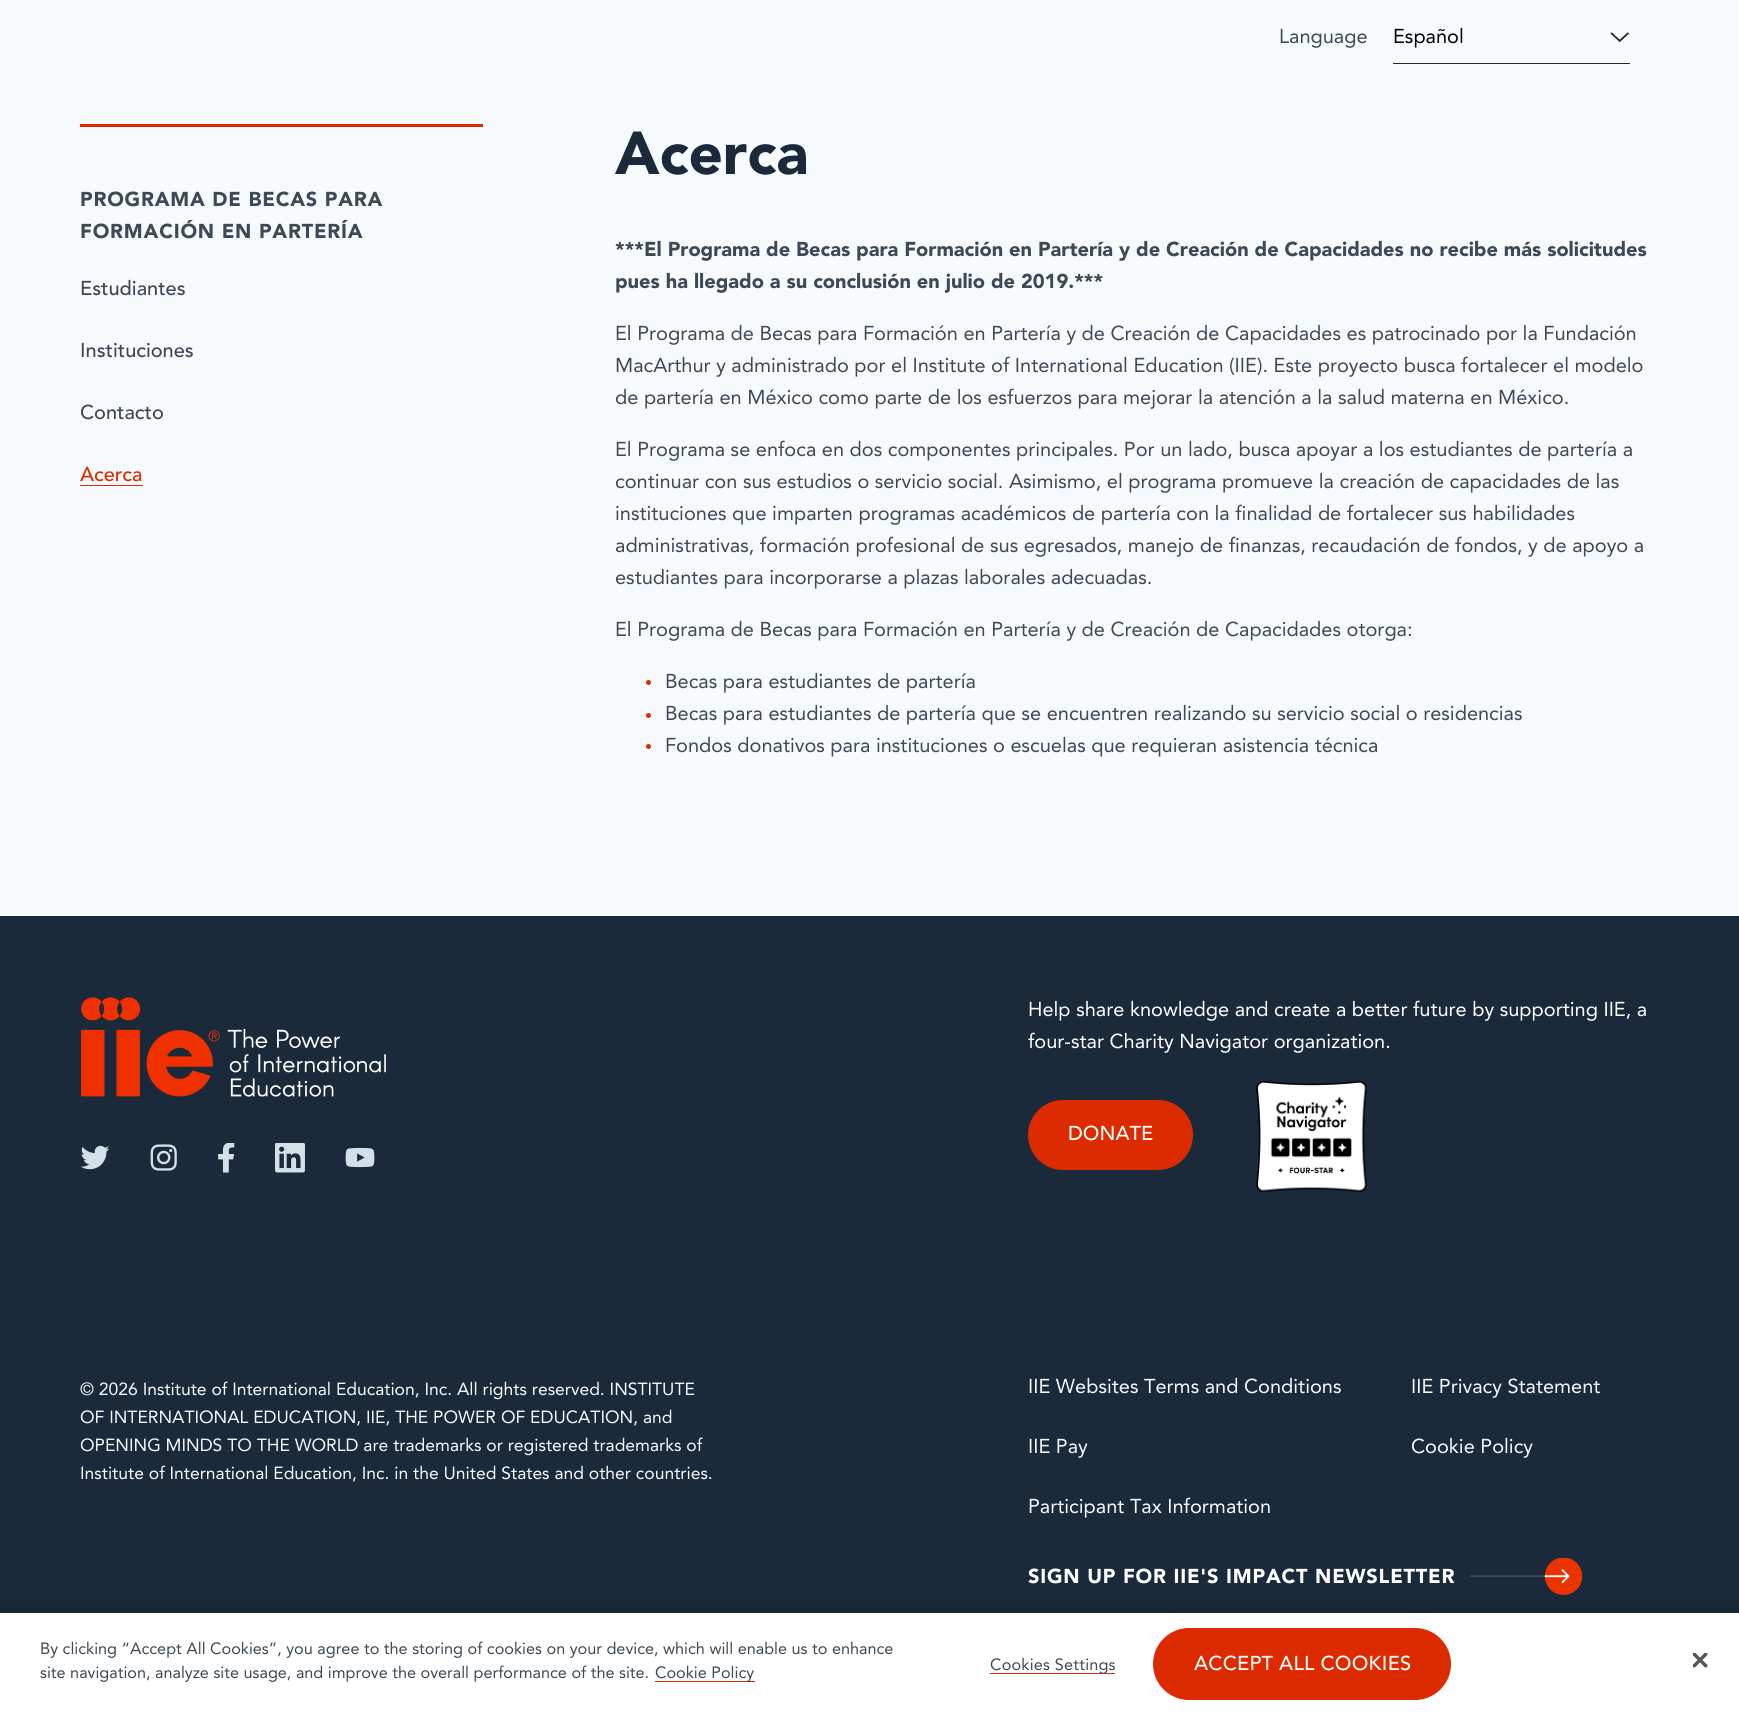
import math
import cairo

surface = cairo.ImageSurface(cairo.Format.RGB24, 1739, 1714)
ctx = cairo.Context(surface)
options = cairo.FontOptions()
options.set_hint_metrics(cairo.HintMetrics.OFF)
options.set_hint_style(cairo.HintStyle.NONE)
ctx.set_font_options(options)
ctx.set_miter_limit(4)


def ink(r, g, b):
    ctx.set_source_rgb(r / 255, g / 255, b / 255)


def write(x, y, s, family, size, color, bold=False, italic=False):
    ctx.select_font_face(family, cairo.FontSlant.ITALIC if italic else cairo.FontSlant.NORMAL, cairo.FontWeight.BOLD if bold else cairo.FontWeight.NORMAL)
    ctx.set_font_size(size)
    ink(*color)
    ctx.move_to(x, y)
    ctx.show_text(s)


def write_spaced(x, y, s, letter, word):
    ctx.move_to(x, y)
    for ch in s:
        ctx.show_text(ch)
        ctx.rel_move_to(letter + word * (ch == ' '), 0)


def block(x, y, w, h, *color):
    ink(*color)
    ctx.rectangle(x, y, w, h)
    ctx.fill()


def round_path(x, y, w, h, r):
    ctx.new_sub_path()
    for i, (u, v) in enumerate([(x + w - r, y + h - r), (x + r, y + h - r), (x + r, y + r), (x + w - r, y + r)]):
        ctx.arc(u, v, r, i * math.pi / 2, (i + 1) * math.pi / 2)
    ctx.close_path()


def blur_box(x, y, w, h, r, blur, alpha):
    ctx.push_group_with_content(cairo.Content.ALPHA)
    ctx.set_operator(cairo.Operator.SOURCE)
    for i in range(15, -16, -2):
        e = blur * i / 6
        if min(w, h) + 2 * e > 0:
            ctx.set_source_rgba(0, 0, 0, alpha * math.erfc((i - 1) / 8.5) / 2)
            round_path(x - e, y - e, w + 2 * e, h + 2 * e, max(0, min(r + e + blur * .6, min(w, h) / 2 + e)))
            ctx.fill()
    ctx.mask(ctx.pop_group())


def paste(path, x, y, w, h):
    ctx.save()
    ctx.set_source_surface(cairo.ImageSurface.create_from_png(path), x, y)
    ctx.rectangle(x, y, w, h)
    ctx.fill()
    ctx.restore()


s1 = dict(family="Avenir", size=20, color=(61, 73, 85))
s2 = dict(family="Avenir", size=20, color=(0, 0, 0))
s3 = dict(family="Avenir Medium", size=20, color=(61, 73, 85))
s4 = dict(family="Avenir Medium", size=20, color=(220, 43, 0))
s5 = dict(family="Avenir Black", size=60, color=(26, 42, 58))
s6 = dict(family="Avenir Black", size=20, color=(61, 73, 85))
s7 = dict(family="Avenir", size=20, color=(255, 255, 255))
s8 = dict(family="Avenir Medium", size=20, color=(255, 255, 255))
s9 = dict(family="Avenir", size=17.5, color=(247, 250, 253))
s10 = dict(family="Avenir", size=20, color=(247, 250, 253))
s11 = dict(family="Avenir", size=16.25, color=(61, 73, 85))

ink(247, 250, 253)
ctx.paint()
write(1279, 43, "Language", **s1)
paste("pic1.png", 1610, 32, 19, 10)
block(1393, 63, 237, 1, 26, 42, 58)
write(1393, 43, "Español", **s2)
block(80, 124, 403, 3, 220, 43, 0)
ctx.select_font_face("Avenir Black")
ink(61, 73, 85)
write_spaced(80, 206, "PROGRAMA DE BECAS PARA", 0.8, 0)
write_spaced(80, 238, "FORMACIÓN EN PARTERÍA", 0.8, 0)
write(80, 295, "Estudiantes", **s3)
write(80, 357, "Instituciones", **s3)
write(80, 419, "Contacto", **s3)
write(80, 481, "Acerca", **s4)
block(80, 485, 63, 1, 220, 43, 0)
write(615, 174, "Acerca", **s5)
write(615, 256, "***El Programa de Becas para Formación en Partería y de Creación de Capacidades no recibe más solicitudes", **s6)
write(615, 288, "pues ha llegado a su conclusión en julio de 2019.***", **s6)
write(615, 340, "El Programa de Becas para Formación en Partería y de Creación de Capacidades es patrocinado por la Fundación", **s1)
write(615, 372, "MacArthur y administrado por el Institute of International Education (IIE). Este proyecto busca fortalecer el modelo", **s1)
write(615, 404, "de partería en México como parte de los esfuerzos para mejorar la atención a la salud materna en México.", **s1)
write(615, 456, "El Programa se enfoca en dos componentes principales. Por un lado, busca apoyar a los estudiantes de partería a", **s1)
write(615, 488, "continuar con sus estudios o servicio social. Asimismo, el programa promueve la creación de capacidades de las", **s1)
write(615, 520, "instituciones que imparten programas académicos de partería con la finalidad de fortalecer sus habilidades", **s1)
write(615, 552, "administrativas, formación profesional de sus egresados, manejo de finanzas, recaudación de fondos, y de apoyo a", **s1)
write(615, 584, "estudiantes para incorporarse a plazas laborales adecuadas.", **s1)
write(615, 636, "El Programa de Becas para Formación en Partería y de Creación de Capacidades otorga:", **s1)
ink(220, 43, 0)
ctx.new_path()
ctx.arc(648.5, 682.5, 2.5, 0, 2 * math.pi)
ctx.fill()
write(665, 688, "Becas para estudiantes de partería", **s1)
ink(220, 43, 0)
ctx.new_path()
ctx.arc(648.5, 715.5, 2.5, 0, 2 * math.pi)
ctx.fill()
write(665, 720, "Becas para estudiantes de partería que se encuentren realizando su servicio social o residencias", **s1)
ink(220, 43, 0)
ctx.new_path()
ctx.arc(648.5, 746.5, 2.5, 0, 2 * math.pi)
ctx.fill()
write(665, 752, "Fondos donativos para instituciones o escuelas que requieran asistencia técnica", **s1)
block(0, 916, 1739, 697, 26, 42, 58)
paste("pic2.png", 81, 997, 305, 100)
paste("pic3.png", 80, 1145, 30, 25)
paste("pic4.png", 150, 1144, 27, 27)
paste("pic5.png", 218, 1143, 17, 30)
paste("pic6.png", 275, 1143, 30, 30)
paste("pic7.png", 345, 1147, 30, 21)
write(1028, 1016, "Help share knowledge and create a better future by supporting IIE, a", **s7)
write(1028, 1048, "four-star Charity Navigator organization.", **s7)
ink(220, 43, 0)
round_path(1028, 1100, 165, 70, 35)
ctx.fill()
write(1068, 1140, "DONATE", **s8)
paste("pic8.png", 1256, 1080, 111, 113)
write(80, 1395, "© 2026 Institute of International Education, Inc. All rights reserved. INSTITUTE", **s9)
write(80, 1423, "OF INTERNATIONAL EDUCATION, IIE, THE POWER OF EDUCATION, and", **s9)
write(80, 1451, "OPENING MINDS TO THE WORLD are trademarks or registered trademarks of", **s9)
write(80, 1479, "Institute of International Education, Inc. in the United States and other countries.", **s9)
write(1028, 1393, "IIE Websites Terms and Conditions", **s10)
write(1028, 1453, "IIE Pay", **s10)
write(1028, 1513, "Participant Tax Information", **s10)
write(1411, 1393, "IIE Privacy Statement", **s10)
write(1411, 1453, "Cookie Policy", **s10)
ctx.select_font_face("Avenir Black")
ink(255, 255, 255)
write_spaced(1028, 1583, "SIGN UP FOR IIE'S IMPACT NEWSLETTER", 0.8, 0)
paste("pic9.png", 1470, 1558, 113, 37)
ink(0, 0, 0)
blur_box(0, 1613, 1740, 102, 0, 11, 0.2)
block(0, 1613, 1739, 101, 255, 255, 255)
write(40, 1654, "By clicking “Accept All Cookies”, you agree to the storing of cookies on your device, which will enable us to enhance", **s11)
write(40, 1678, "site navigation, analyze site usage, and improve the overall performance of the site.", **s11)
block(655, 1681, 100, 1, 220, 43, 0)
write(655, 1678, "Cookie Policy", **s11)
block(990, 1673, 125, 1, 220, 43, 0)
ink(61, 73, 85)
write_spaced(990, 1670, "Cookies Settings", 0.2, 0)
ink(220, 43, 0)
round_path(1153.5, 1628.5, 297, 71, 35.5)
ctx.fill_preserve()
ctx.set_line_width(1)
ctx.stroke()
ctx.select_font_face("Avenir Medium")
ctx.set_font_size(20)
ink(255, 255, 255)
write_spaced(1194, 1670, "ACCEPT ALL COOKIES", 0.25, 0)
paste("pic10.png", 1693, 1653, 15, 15)
surface.write_to_png("screenshot.png")
